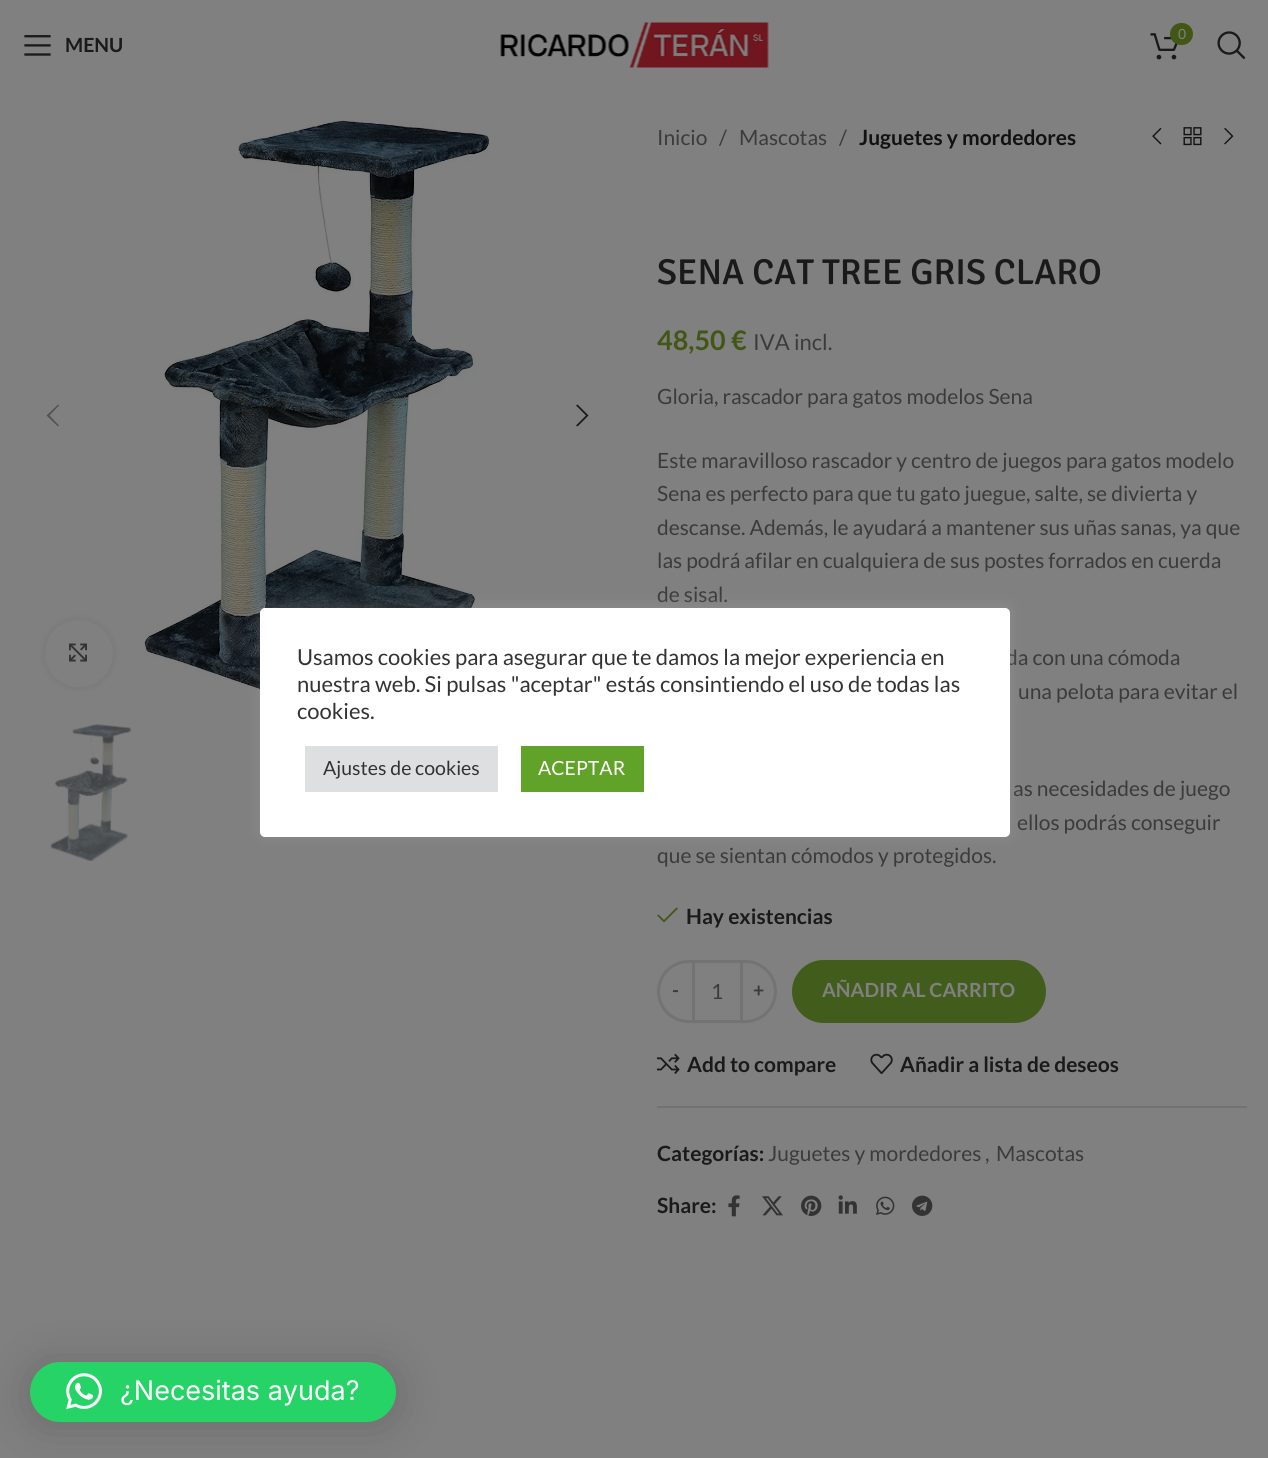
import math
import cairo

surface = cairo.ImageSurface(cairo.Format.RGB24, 1268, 1458)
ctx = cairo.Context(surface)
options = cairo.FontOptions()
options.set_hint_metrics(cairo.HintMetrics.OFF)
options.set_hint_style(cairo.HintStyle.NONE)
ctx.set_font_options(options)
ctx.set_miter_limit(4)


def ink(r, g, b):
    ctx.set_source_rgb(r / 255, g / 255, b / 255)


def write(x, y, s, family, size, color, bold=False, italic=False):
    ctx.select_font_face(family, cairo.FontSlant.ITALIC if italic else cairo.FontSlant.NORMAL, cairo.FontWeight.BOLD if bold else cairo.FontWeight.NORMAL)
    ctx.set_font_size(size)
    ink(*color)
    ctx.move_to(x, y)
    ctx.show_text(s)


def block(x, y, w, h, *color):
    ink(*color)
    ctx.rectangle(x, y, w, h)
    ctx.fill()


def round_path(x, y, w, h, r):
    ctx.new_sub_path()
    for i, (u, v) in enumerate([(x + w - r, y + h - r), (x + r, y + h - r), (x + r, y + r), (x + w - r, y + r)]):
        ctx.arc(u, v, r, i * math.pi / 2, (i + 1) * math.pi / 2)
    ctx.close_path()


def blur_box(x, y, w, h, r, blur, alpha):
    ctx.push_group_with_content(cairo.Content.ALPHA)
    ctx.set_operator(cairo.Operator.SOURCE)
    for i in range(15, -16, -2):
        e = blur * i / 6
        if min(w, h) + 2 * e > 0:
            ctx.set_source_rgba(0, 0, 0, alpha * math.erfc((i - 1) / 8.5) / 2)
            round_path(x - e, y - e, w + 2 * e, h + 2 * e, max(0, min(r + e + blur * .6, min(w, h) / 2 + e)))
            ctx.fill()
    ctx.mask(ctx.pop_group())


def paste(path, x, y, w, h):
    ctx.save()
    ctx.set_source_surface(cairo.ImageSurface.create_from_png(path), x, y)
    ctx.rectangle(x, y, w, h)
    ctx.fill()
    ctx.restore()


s1 = dict(family="Lato", size=14, color=(128, 128, 128))
s2 = dict(family="Lato", size=19.5, color=(26, 26, 26), bold=True)
s3 = dict(family="Lato", size=21, color=(59, 59, 59))
s4 = dict(family="Lato", size=21, color=(18, 18, 18), bold=True)
s5 = dict(family="Signika Medium", size=36, color=(26, 26, 26))
s6 = dict(family="Lato", size=27, color=(66, 86, 22), bold=True)
s7 = dict(family="Lato", size=22, color=(59, 59, 59))
s8 = dict(family="Lato", size=21, color=(26, 26, 26), bold=True)
s9 = dict(family="Lato", size=19.5, color=(59, 59, 59), bold=True)
s10 = dict(family="Lato", size=19.5, color=(128, 128, 128), bold=True)
s11 = dict(family="Lato", size=22, color=(51, 51, 51))
s12 = dict(family="Lato", size=19.5, color=(51, 51, 51))
s13 = dict(family="Lato", size=19.5, color=(255, 255, 255))
s14 = dict(family="Inter", size=27, color=(255, 255, 255))

ink(128, 128, 128)
ctx.paint()
paste("pic1.png", 500, 22, 269, 46)
paste("pic2.png", 1150, 33, 28, 27)
ink(66, 86, 22)
round_path(1170, 23, 23, 22, 11)
ctx.fill()
write(1178, 39, "0", **s1)
paste("pic3.png", 1217, 31, 29, 29)
paste("pic4.png", 24, 35, 27, 21)
write(65, 52, "MENU", **s2)
paste("pic5.png", 144, 120, 346, 590)
ink(83, 83, 83)
ctx.new_path()
ctx.move_to(59, 405.5)
ctx.line_to(58, 404.5)
ctx.line_to(46.5, 415.5)
ctx.line_to(58, 426.5)
ctx.line_to(59, 425.5)
ctx.line_to(49.5, 415.5)
ctx.close_path()
ctx.fill()
ink(26, 26, 26)
ctx.new_path()
ctx.move_to(576, 405.5)
ctx.line_to(586, 415.5)
ctx.line_to(576, 425.5)
ctx.line_to(577.5, 426.5)
ctx.line_to(588.5, 415.5)
ctx.line_to(577.5, 404.5)
ctx.close_path()
ctx.fill()
ink(0, 0, 0)
blur_box(45, 620, 68, 67, 33.5, 4, 0.08)
ink(128, 128, 128)
round_path(45, 620, 68, 67, 33.5)
ctx.fill()
paste("pic6.png", 69, 643, 18, 19)
paste("pic7.png", 50, 724, 82, 137)
write(657, 145, "Inicio", **s3)
write(719, 145, "/", **s3)
write(739, 145, "Mascotas", **s3)
write(839, 145, "/", **s3)
write(859, 145, "Juguetes y mordedores", **s4)
paste("pic8.png", 1152, 127, 10, 18)
paste("pic9.png", 1183, 127, 19, 19)
paste("pic10.png", 1224, 127, 10, 18)
write(657, 284, "SENA CAT TREE GRIS CLARO", **s5)
write(657, 350, "48,50 €", **s6)
write(753, 350, "IVA incl.", **s7)
write(657, 404, "Gloria, rascador para gatos modelos Sena", **s3)
write(657, 468, "Este maravilloso rascador y centro de juegos para gatos modelo", **s3)
write(657, 501, "Sena es perfecto para que tu gato juegue, salte, se divierta y", **s3)
write(657, 535, "descanse. Además, le ayudará a mantener sus uñas sanas, ya que", **s3)
write(657, 568, "las podrá afilar en cualquiera de sus postes forrados en cuerda", **s3)
write(657, 602, "de sisal.", **s3)
write(1006, 665, "da con una cómoda", **s3)
write(1018, 699, "una pelota para evitar el", **s3)
write(1013, 796, "as necesidades de juego", **s3)
write(1017, 830, "ellos podrás conseguir", **s3)
write(657, 863, "que se sientan cómodos y protegidos.", **s3)
ink(66, 86, 22)
ctx.new_path()
ctx.move_to(678, 908.5)
ctx.line_to(676.5, 907.5)
ctx.line_to(664, 920)
ctx.line_to(658.5, 914.5)
ctx.line_to(657, 915.5)
ctx.line_to(664, 922.5)
ctx.close_path()
ctx.fill()
write(686, 924, "Hay existencias", **s8)
ctx.new_path()
ctx.move_to(688.5, 961.5)
ctx.line_to(693.5, 961.5)
ctx.line_to(693.5, 1021.5)
ctx.line_to(688.5, 1021.5)
ctx.curve_to(672, 1021.5, 658.5, 1008, 658.5, 991.5)
ctx.curve_to(658.5, 975, 672, 961.5, 688.5, 961.5)
ctx.close_path()
ink(115, 115, 115)
ctx.set_line_width(3)
ctx.stroke()
write(672, 997, "-", **s9)
block(695, 960, 45, 3, 115, 115, 115)
block(695, 1020, 45, 3, 115, 115, 115)
write(711, 999, "1", **s3)
ctx.new_path()
ctx.move_to(741.5, 961.5)
ctx.line_to(745.5, 961.5)
ctx.curve_to(762, 961.5, 775.5, 975, 775.5, 991.5)
ctx.curve_to(775.5, 1008, 762, 1021.5, 745.5, 1021.5)
ctx.line_to(741.5, 1021.5)
ctx.close_path()
ink(115, 115, 115)
ctx.stroke()
write(753, 997, "+", **s9)
ink(66, 92, 27)
round_path(792, 960, 254, 63, 31.5)
ctx.fill()
write(822, 997, "AÑADIR AL CARRITO", **s10)
paste("pic11.png", 657, 1053, 23, 21)
write(687, 1072, "Add to compare", **s8)
paste("pic12.png", 870, 1053, 23, 21)
write(900, 1072, "Añadir a lista de deseos", **s8)
block(657, 1106, 590, 2, 114, 114, 114)
write(657, 1161, "Categorías:", **s8)
write(768, 1161, "Juguetes y mordedores", **s3)
write(985, 1161, ",", **s3)
write(996, 1161, "Mascotas", **s3)
write(657, 1213, "Share:", **s8)
paste("pic13.png", 728, 1195, 12, 22)
paste("pic14.png", 762, 1196, 21, 20)
paste("pic15.png", 801, 1195, 21, 21)
paste("pic16.png", 838, 1195, 19, 19)
paste("pic17.png", 876, 1196, 19, 19)
paste("pic18.png", 912, 1195, 21, 21)
ink(172, 171, 171)
blur_box(260, 606, 750, 230, 5, 7.5, 0.3)
ink(255, 255, 255)
round_path(260, 608, 750, 229, 5)
ctx.fill()
write(297, 665, "Usamos cookies para asegurar que te damos la mejor experiencia en", **s11)
write(297, 692, "nuestra web. Si pulsas \"aceptar\" estás consintiendo el uso de todas las", **s11)
write(297, 719, "cookies.", **s11)
block(305, 746, 193, 46, 222, 223, 224)
write(323, 775, "Ajustes de cookies", **s12)
block(521, 746, 123, 46, 97, 162, 41)
write(538, 775, "ACEPTAR", **s13)
ink(0, 0, 0)
blur_box(30, 1365, 366, 60, 30, 24, 0.16)
ink(37, 211, 102)
round_path(30, 1362, 366, 60, 30)
ctx.fill()
paste("pic19.png", 66, 1373, 36, 37)
write(120, 1400, "¿Necesitas ayuda?", **s14)
surface.write_to_png("screenshot.png")
